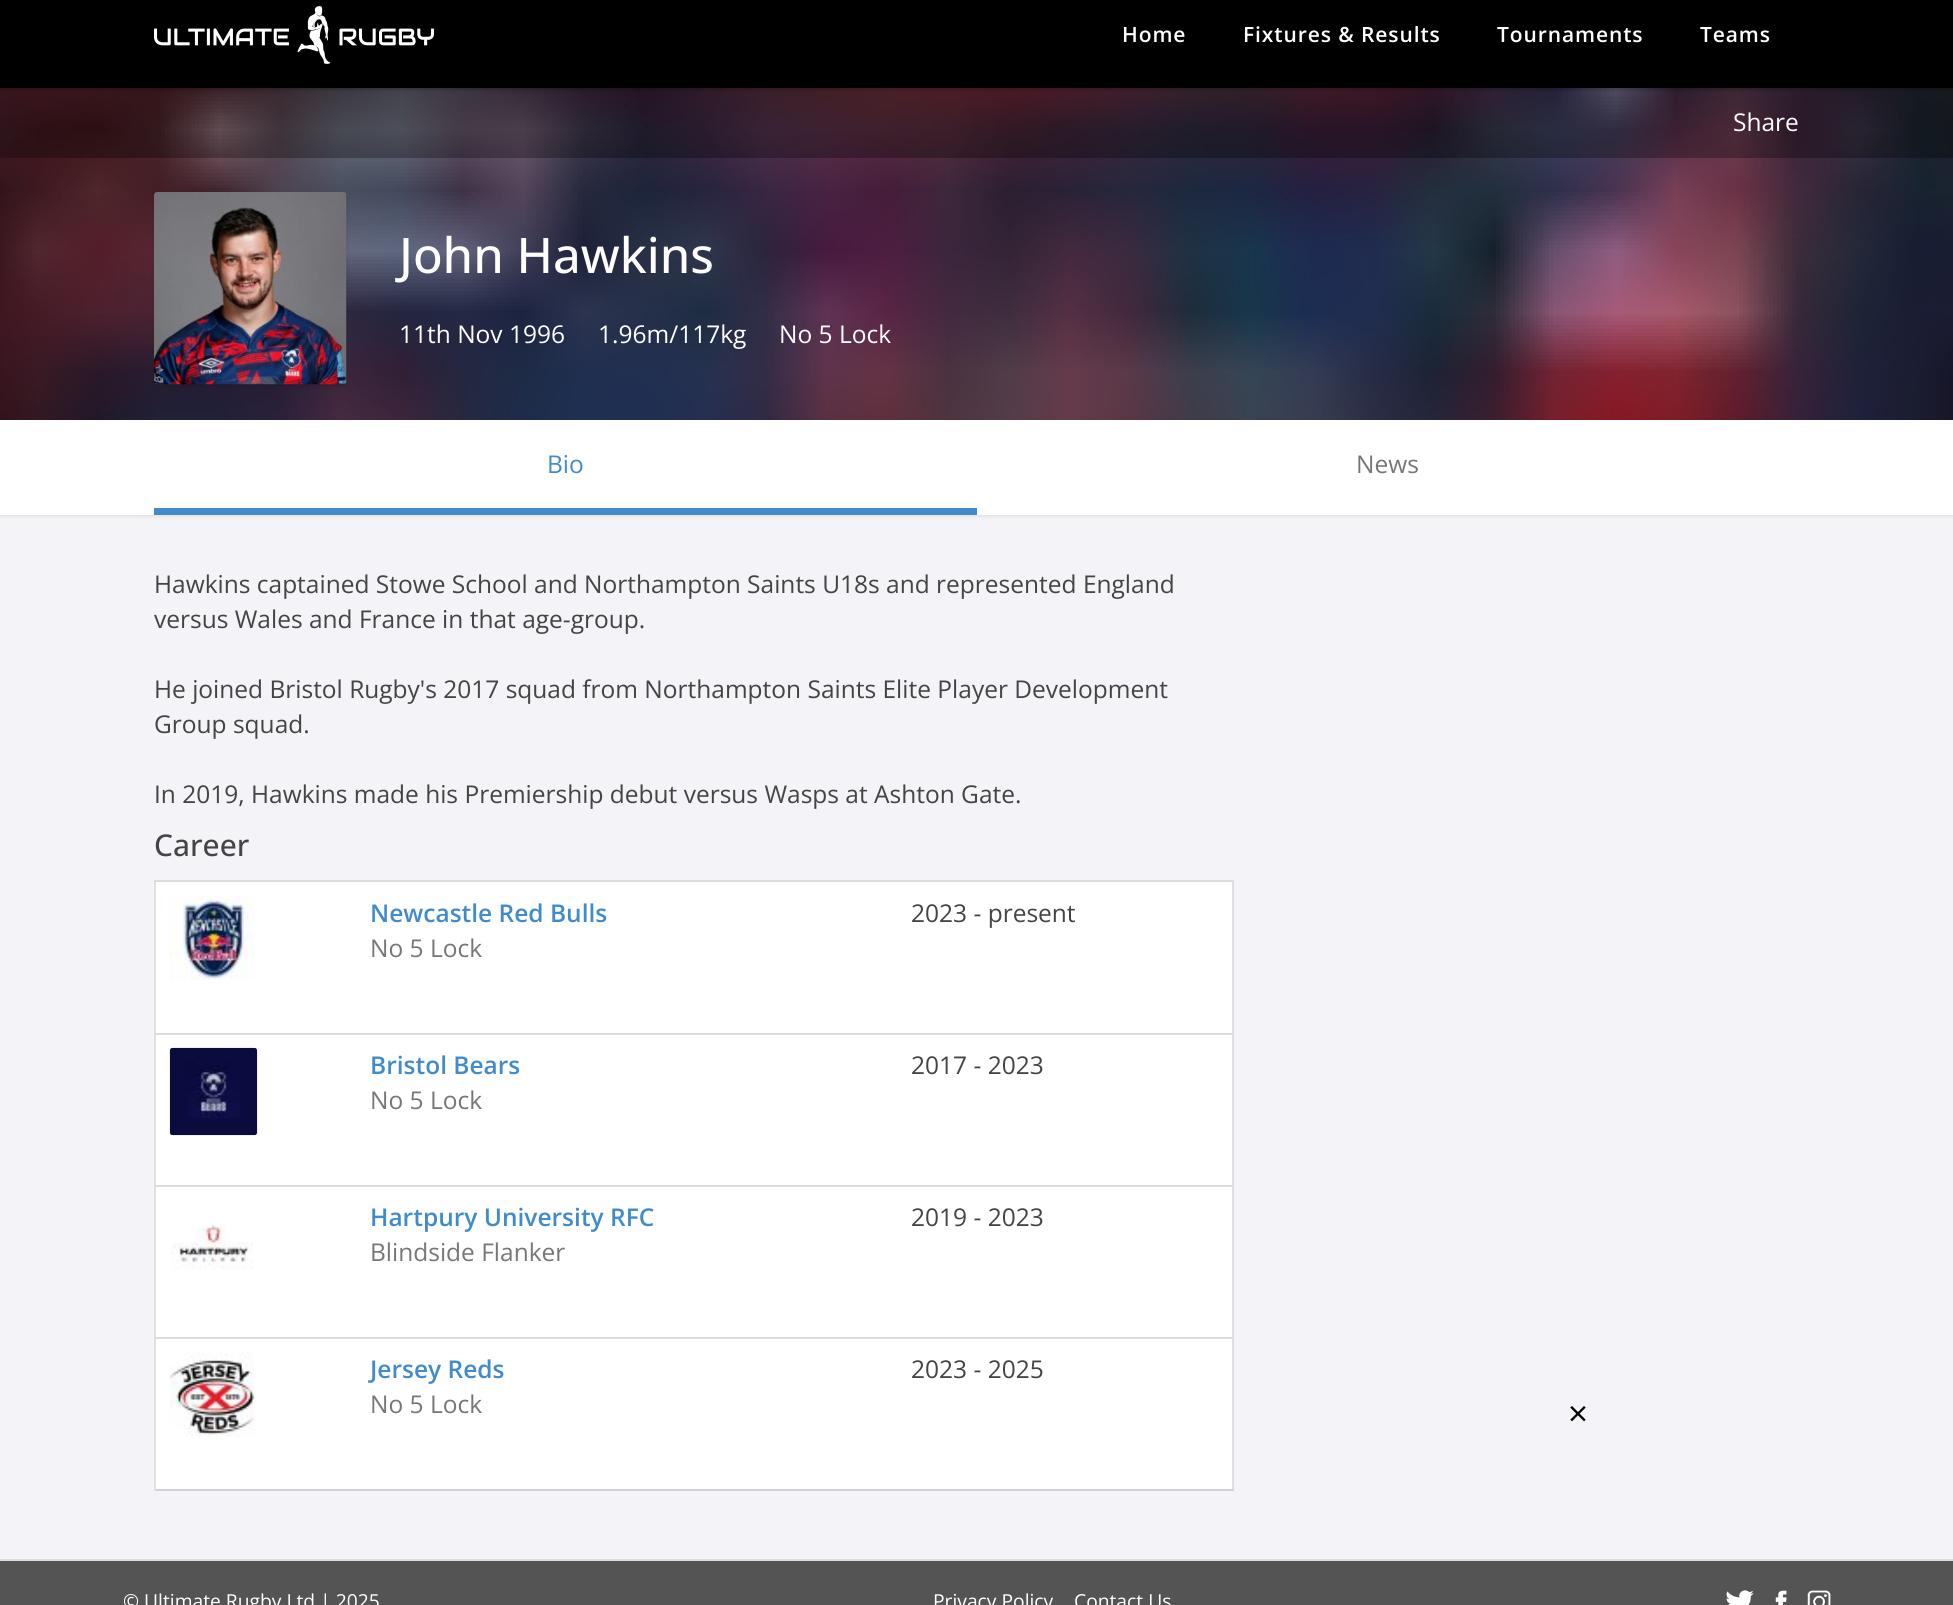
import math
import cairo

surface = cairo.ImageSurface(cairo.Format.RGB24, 1953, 1605)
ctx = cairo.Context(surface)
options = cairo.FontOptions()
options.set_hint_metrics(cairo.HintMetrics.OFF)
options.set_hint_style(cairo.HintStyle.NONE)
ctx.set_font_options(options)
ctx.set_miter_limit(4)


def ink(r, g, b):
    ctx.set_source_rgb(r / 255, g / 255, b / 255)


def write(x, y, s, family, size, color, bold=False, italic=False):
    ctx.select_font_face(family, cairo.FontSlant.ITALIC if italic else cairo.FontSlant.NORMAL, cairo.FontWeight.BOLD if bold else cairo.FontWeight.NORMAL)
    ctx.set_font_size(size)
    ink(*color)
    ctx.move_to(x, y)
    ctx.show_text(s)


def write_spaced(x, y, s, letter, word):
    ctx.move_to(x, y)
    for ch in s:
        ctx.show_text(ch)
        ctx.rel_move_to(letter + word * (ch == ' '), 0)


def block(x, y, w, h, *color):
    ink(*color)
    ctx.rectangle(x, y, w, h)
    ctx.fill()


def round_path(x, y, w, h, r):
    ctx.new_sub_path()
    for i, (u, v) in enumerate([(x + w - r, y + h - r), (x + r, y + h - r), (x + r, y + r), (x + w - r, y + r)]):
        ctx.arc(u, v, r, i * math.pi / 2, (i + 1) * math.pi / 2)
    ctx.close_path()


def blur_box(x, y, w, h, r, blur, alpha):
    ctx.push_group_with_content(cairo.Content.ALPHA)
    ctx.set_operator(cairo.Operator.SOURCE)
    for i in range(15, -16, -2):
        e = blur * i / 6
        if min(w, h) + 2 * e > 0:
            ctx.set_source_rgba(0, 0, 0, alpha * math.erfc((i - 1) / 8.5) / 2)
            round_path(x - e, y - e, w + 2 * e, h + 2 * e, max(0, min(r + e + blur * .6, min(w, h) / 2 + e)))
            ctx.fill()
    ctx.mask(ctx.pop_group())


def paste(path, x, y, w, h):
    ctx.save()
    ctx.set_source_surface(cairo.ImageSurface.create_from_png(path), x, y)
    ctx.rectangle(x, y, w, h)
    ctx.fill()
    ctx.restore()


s1 = dict(family="Open Sans", size=24.5, color=(255, 255, 255))
s2 = dict(family="Open Sans Medium", size=49, color=(255, 255, 255))
s3 = dict(family="Open Sans", size=24.5, color=(66, 139, 202))
s4 = dict(family="Open Sans", size=24.5, color=(119, 119, 119))
s5 = dict(family="Open Sans", size=24.5, color=(68, 68, 68))
s6 = dict(family="Open Sans Medium", size=30, color=(68, 68, 68))
s7 = dict(family="Open Sans SemiBold", size=24.5, color=(66, 139, 202))
s8 = dict(family="Open Sans", size=35, color=(0, 0, 0))
s9 = dict(family="Open Sans", size=19.25, color=(255, 255, 255))

ink(243, 243, 248)
ctx.paint()
block(0, 88, 1953, 332, 34, 34, 34)
paste("pic2.png", 0, 88, 1953, 332)
ctx.set_source_rgba(0, 0, 0, 0.3)
ctx.rectangle(0, 88, 1953, 70)
ctx.fill()
ink(0, 0, 0)
blur_box(0, -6, 1953, 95, 0, 2, 0.3)
block(0, 0, 1953, 88, 0, 0, 0)
paste("pic1.png", 154, 6, 280, 58)
ctx.select_font_face("Open Sans SemiBold")
ctx.set_font_size(21)
ink(255, 255, 255)
write_spaced(1122, 42, "Home", 0.9, 0)
write_spaced(1243, 42, "Fixtures & Results", 0.9, 0)
write_spaced(1497, 42, "Tournaments", 0.9, 0)
write_spaced(1700, 42, "Teams", 0.9, 0)
write(1733, 131, "Share", **s1)
ink(0, 0, 0)
blur_box(154, 194, 193, 193, 4, 2, 0.1)
paste("pic3.png", 154, 192, 193, 193)
write(399, 273, "John Hawkins", **s2)
write(399, 343, "11th Nov 1996", **s1)
write(598, 343, "1.96m/117kg", **s1)
write(779, 343, "No 5 Lock", **s1)
ink(0, 0, 0)
blur_box(0, 422, 1953, 94, 0, 2, 0.1)
block(0, 420, 1953, 95, 255, 255, 255)
block(154, 508, 823, 7, 66, 139, 202)
write(547, 473, "Bio", **s3)
write(1356, 473, "News", **s4)
write(154, 593, "Hawkins captained Stowe School and Northampton Saints U18s and represented England", **s5)
write(154, 628, "versus Wales and France in that age-group.", **s5)
write(154, 698, "He joined Bristol Rugby's 2017 squad from Northampton Saints Elite Player Development", **s5)
write(154, 733, "Group squad.", **s5)
write(154, 803, "In 2019, Hawkins made his Premiership debut versus Wasps at Ashton Gate.", **s5)
write(154, 856, "Career", **s6)
block(156, 882, 1076, 607, 255, 255, 255)
block(1232, 880, 2, 611, 223, 224, 228)
block(154, 1489, 1080, 2, 208, 209, 213)
block(154, 880, 2, 611, 223, 224, 228)
paste("pic4.png", 170, 895, 85, 85)
write(370, 922, "Newcastle Red Bulls", **s7)
write(370, 957, "No 5 Lock", **s4)
block(154, 880, 1080, 2, 221, 221, 221)
write(911, 922, "2023 - present", **s5)
paste("pic5.png", 169, 1047, 89, 89)
write(370, 1074, "Bristol Bears", **s7)
write(370, 1109, "No 5 Lock", **s4)
block(154, 1033, 1080, 2, 221, 221, 221)
write(911, 1074, "2017 - 2023", **s5)
write(370, 1226, "Hartpury University RFC", **s7)
write(370, 1261, "Blindside Flanker", **s4)
block(154, 1185, 1080, 2, 221, 221, 221)
write(911, 1226, "2019 - 2023", **s5)
paste("pic6.png", 171, 1224, 82, 46)
paste("pic7.png", 170, 1352, 85, 85)
write(370, 1378, "Jersey Reds", **s7)
write(370, 1413, "No 5 Lock", **s4)
block(154, 1337, 1080, 2, 221, 221, 221)
write(911, 1378, "2023 - 2025", **s5)
write(1568, 1426, "×", **s8)
block(0, 1561, 1953, 44, 84, 84, 84)
block(0, 1559, 1953, 2, 221, 221, 221)
write(123, 1608, "© Ultimate Rugby Ltd | 2025", **s9)
write(933, 1608, "Privacy Policy", **s9)
write(1074, 1608, "Contact Us", **s9)
paste("pic8.png", 1726, 1590, 28, 15)
paste("pic9.png", 1775, 1590, 12, 15)
paste("pic10.png", 1807, 1590, 24, 15)
surface.write_to_png("screenshot.png")
